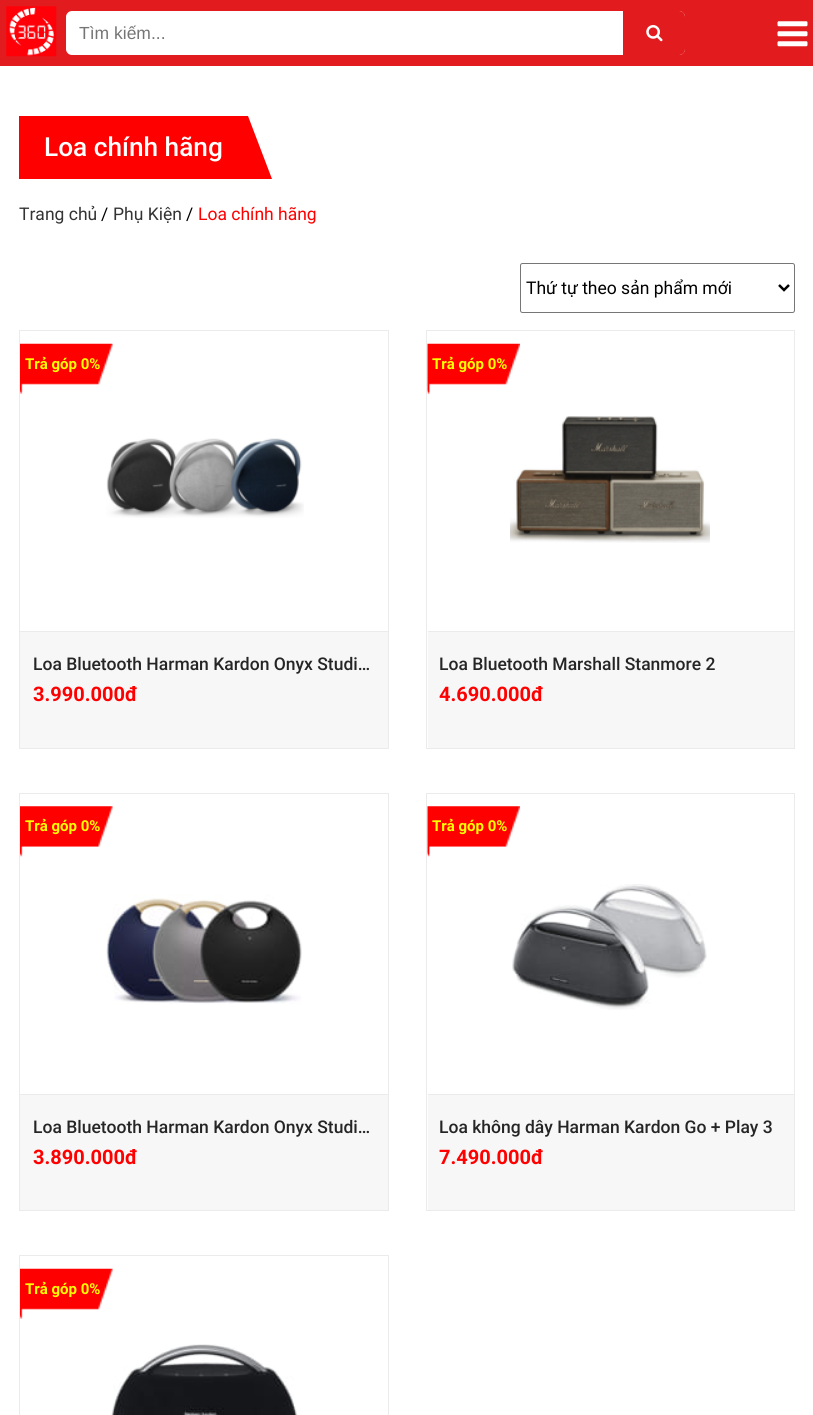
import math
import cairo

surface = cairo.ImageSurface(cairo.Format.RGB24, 813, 1415)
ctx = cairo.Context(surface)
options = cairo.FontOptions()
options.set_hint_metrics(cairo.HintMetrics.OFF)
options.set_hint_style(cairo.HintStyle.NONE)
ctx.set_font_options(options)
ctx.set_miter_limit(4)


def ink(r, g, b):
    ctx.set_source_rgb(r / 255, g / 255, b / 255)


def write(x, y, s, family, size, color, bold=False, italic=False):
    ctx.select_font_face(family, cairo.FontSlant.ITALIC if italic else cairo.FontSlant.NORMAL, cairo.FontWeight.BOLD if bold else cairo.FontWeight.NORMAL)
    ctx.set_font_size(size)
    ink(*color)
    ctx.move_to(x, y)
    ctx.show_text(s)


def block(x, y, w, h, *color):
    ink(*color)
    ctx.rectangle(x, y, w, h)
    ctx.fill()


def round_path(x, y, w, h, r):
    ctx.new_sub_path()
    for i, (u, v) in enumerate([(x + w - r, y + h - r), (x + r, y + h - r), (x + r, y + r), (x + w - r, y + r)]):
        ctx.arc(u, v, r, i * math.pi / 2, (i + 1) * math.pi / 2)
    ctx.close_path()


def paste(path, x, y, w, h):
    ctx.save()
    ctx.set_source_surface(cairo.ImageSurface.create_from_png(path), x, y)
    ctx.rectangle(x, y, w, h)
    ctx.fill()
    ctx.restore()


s1 = dict(family="Liberation Sans", size=17.5, color=(117, 117, 117))
s2 = dict(family="Roboto Medium", size=26.25, color=(255, 255, 255))
s3 = dict(family="Roboto", size=17.5, color=(51, 51, 51))
s4 = dict(family="Roboto", size=17.5, color=(0, 0, 0))
s5 = dict(family="Roboto", size=17.5, color=(255, 0, 0))
s6 = dict(family="Roboto", size=15, color=(255, 255, 0), bold=True)
s7 = dict(family="Roboto Medium", size=17.5, color=(37, 37, 37))
s8 = dict(family="Roboto", size=20, color=(255, 0, 0), bold=True)

ink(255, 255, 255)
ctx.paint()
block(0, 0, 813, 66, 225, 27, 30)
paste("pic1.png", 6, 6, 51, 51)
ink(255, 255, 255)
round_path(66, 11, 619, 44, 6)
ctx.fill()
write(79, 39, "Tìm kiếm...", **s1)
ink(225, 27, 30)
ctx.new_path()
ctx.move_to(623, 11)
ctx.line_to(679, 11)
ctx.curve_to(682.5, 11, 685, 13.5, 685, 17)
ctx.line_to(685, 49)
ctx.curve_to(685, 52.5, 682.5, 55, 679, 55)
ctx.line_to(623, 55)
ctx.close_path()
ctx.fill()
paste("pic2.png", 646, 25, 17, 17)
paste("pic3.png", 777, 21, 31, 26)
block(19, 116, 229, 63, 255, 0, 0)
write(44, 156, "Loa chính hãng", **s2)
ink(255, 0, 0)
ctx.new_path()
ctx.move_to(248, 179)
ctx.line_to(248, 116)
ctx.line_to(272, 179)
ctx.close_path()
ctx.fill()
write(19, 220, "Trang chủ", **s3)
write(101, 220, "/", **s4)
write(113, 220, "Phụ Kiện", **s3)
write(186, 220, "/", **s4)
write(198, 220, "Loa chính hãng", **s5)
round_path(520.5, 263.5, 274, 49, 2)
ink(118, 118, 118)
ctx.set_line_width(1)
ctx.stroke()
ctx.new_path()
ctx.move_to(779, 285)
ctx.line_to(784, 290)
ctx.line_to(789, 285)
ink(0, 0, 0)
ctx.set_line_width(2.5)
ctx.stroke()
write(526, 294, "Thứ tự theo sản phẩm mới", **s4)
ctx.rectangle(19.5, 330.5, 369, 418)
ink(235, 235, 235)
ctx.set_line_width(1)
ctx.stroke()
paste("pic4.png", 20, 343, 93, 51)
write(25, 369, "Trả góp 0%", **s6)
paste("pic5.png", 106, 438, 198, 80)
block(20, 632, 368, 116, 247, 247, 247)
block(20, 631, 368, 1, 235, 235, 235)
write(33, 670, "Loa Bluetooth Harman Kardon Onyx Studi…", **s7)
write(33, 701, "3.990.000đ", **s8)
ctx.rectangle(426.5, 330.5, 368, 418)
ink(235, 235, 235)
ctx.stroke()
paste("pic6.png", 427, 343, 93, 51)
write(432, 369, "Trả góp 0%", **s6)
paste("pic7.png", 510, 416, 200, 127)
block(428, 632, 366, 116, 247, 247, 247)
block(428, 631, 366, 1, 235, 235, 235)
write(439, 670, "Loa Bluetooth Marshall Stanmore 2", **s7)
write(439, 701, "4.690.000đ", **s8)
ctx.rectangle(19.5, 793.5, 369, 417)
ink(235, 235, 235)
ctx.stroke()
paste("pic8.png", 20, 806, 93, 51)
write(25, 831, "Trả góp 0%", **s6)
paste("pic9.png", 106, 894, 196, 110)
block(20, 1095, 368, 115, 247, 247, 247)
block(20, 1094, 368, 1, 235, 235, 235)
write(33, 1133, "Loa Bluetooth Harman Kardon Onyx Studi…", **s7)
write(33, 1164, "3.890.000đ", **s8)
ctx.rectangle(426.5, 793.5, 368, 417)
ink(235, 235, 235)
ctx.stroke()
paste("pic10.png", 427, 806, 93, 51)
write(432, 831, "Trả góp 0%", **s6)
paste("pic11.png", 512, 884, 195, 126)
block(428, 1095, 366, 115, 247, 247, 247)
block(428, 1094, 366, 1, 235, 235, 235)
write(439, 1133, "Loa không dây Harman Kardon Go + Play 3", **s7)
write(439, 1164, "7.490.000đ", **s8)
ctx.rectangle(19.5, 1255.5, 369, 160)
ink(235, 235, 235)
ctx.stroke()
paste("pic4.png", 20, 1268, 93, 51)
write(25, 1294, "Trả góp 0%", **s6)
paste("pic12.png", 111, 1344, 187, 71)
surface.write_to_png("screenshot.png")
